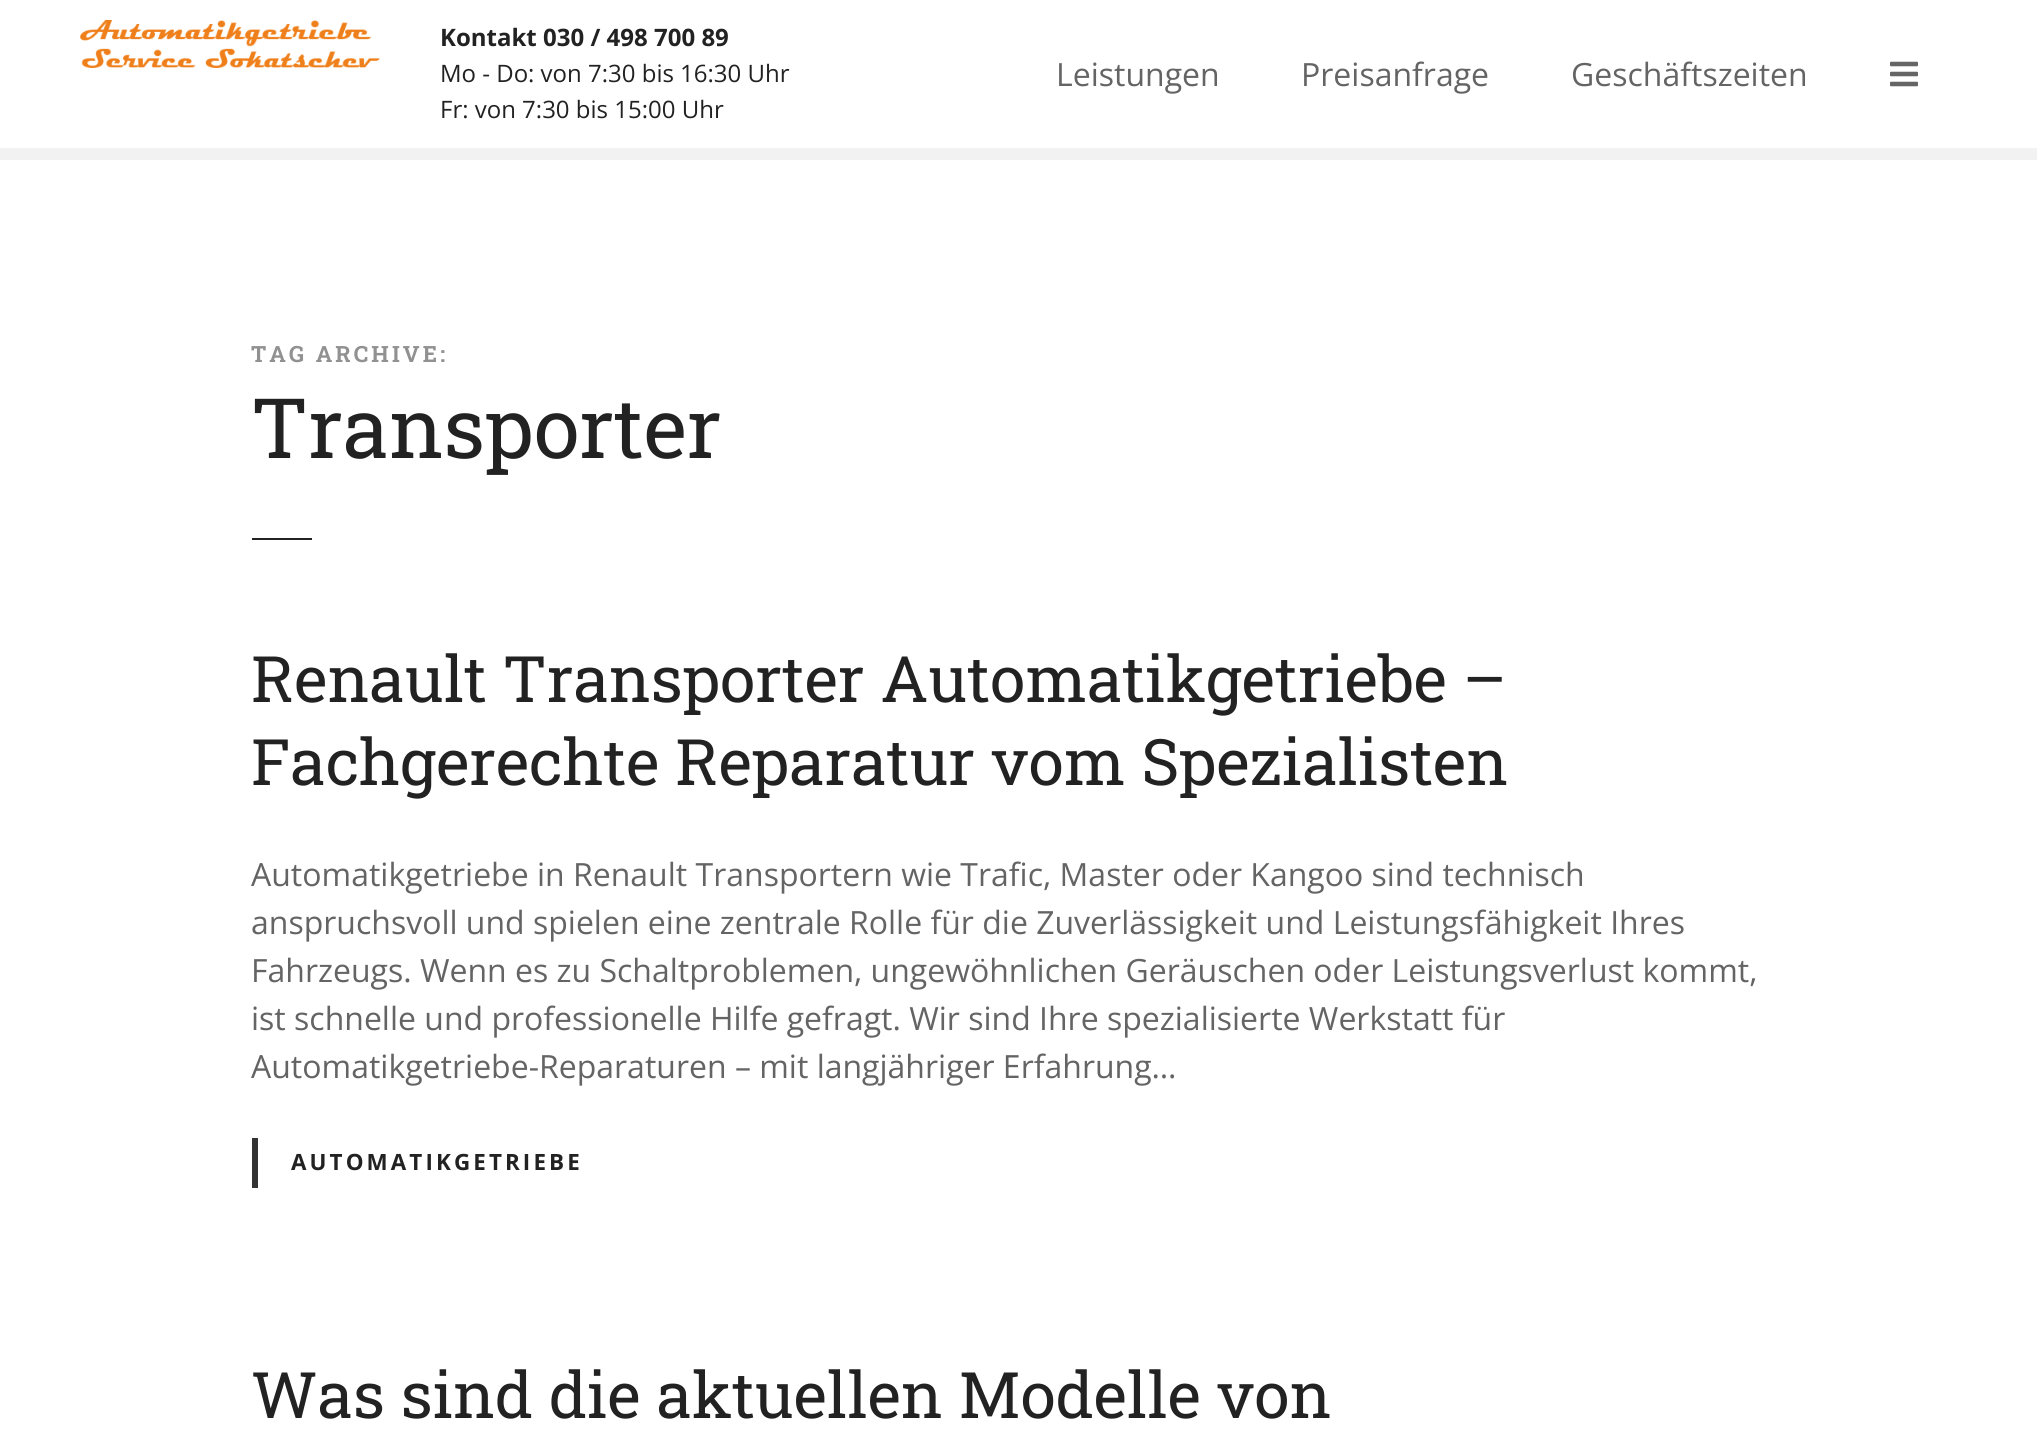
import math
import cairo

surface = cairo.ImageSurface(cairo.Format.RGB24, 2037, 1448)
ctx = cairo.Context(surface)
options = cairo.FontOptions()
options.set_hint_metrics(cairo.HintMetrics.OFF)
options.set_hint_style(cairo.HintStyle.NONE)
ctx.set_font_options(options)
ctx.set_miter_limit(4)


def ink(r, g, b):
    ctx.set_source_rgb(r / 255, g / 255, b / 255)


def write(x, y, s, family, size, color, bold=False, italic=False):
    ctx.select_font_face(family, cairo.FontSlant.ITALIC if italic else cairo.FontSlant.NORMAL, cairo.FontWeight.BOLD if bold else cairo.FontWeight.NORMAL)
    ctx.set_font_size(size)
    ink(*color)
    ctx.move_to(x, y)
    ctx.show_text(s)


def write_spaced(x, y, s, letter, word):
    ctx.move_to(x, y)
    for ch in s:
        ctx.show_text(ch)
        ctx.rel_move_to(letter + word * (ch == ' '), 0)


def block(x, y, w, h, *color):
    ink(*color)
    ctx.rectangle(x, y, w, h)
    ctx.fill()


def paste(path, x, y, w, h):
    ctx.save()
    ctx.set_source_surface(cairo.ImageSurface.create_from_png(path), x, y)
    ctx.rectangle(x, y, w, h)
    ctx.fill()
    ctx.restore()


s1 = dict(family="Open Sans", size=24, color=(34, 34, 34), bold=True)
s2 = dict(family="Open Sans", size=24, color=(34, 34, 34))
s3 = dict(family="Open Sans", size=32, color=(100, 100, 100))
s4 = dict(family="Roboto Slab", size=83.25, color=(34, 34, 34))
s5 = dict(family="Roboto Slab", size=64, color=(34, 34, 34))

ink(255, 255, 255)
ctx.paint()
block(0, 148, 2037, 12, 242, 242, 242)
paste("pic1.png", 80, 20, 300, 48)
write(440, 46, "Kontakt 030 / 498 700 89", **s1)
write(440, 82, "Mo - Do: von 7:30 bis 16:30 Uhr", **s2)
write(440, 118, "Fr: von 7:30 bis 15:00 Uhr", **s2)
write(1056, 86, "Leistungen", **s3)
write(1301, 86, "Preisanfrage", **s3)
write(1571, 86, "Geschäftszeiten", **s3)
paste("pic2.png", 1890, 61, 28, 26)
ctx.select_font_face("Roboto Slab", cairo.FontSlant.NORMAL, cairo.FontWeight.BOLD)
ctx.set_font_size(22.4)
ink(145, 145, 145)
write_spaced(251, 362, "TAG ARCHIVE:", 3.1, 0)
write(251, 458, "Transporter", **s4)
block(252, 538, 60, 2, 34, 34, 34)
write(251, 702, "Renault Transporter Automatikgetriebe –", **s5)
write(251, 785, "Fachgerechte Reparatur vom Spezialisten", **s5)
write(251, 886, "Automatikgetriebe in Renault Transportern wie Trafic, Master oder Kangoo sind technisch", **s3)
write(251, 934, "anspruchsvoll und spielen eine zentrale Rolle für die Zuverlässigkeit und Leistungsfähigkeit Ihres", **s3)
write(251, 982, "Fahrzeugs. Wenn es zu Schaltproblemen, ungewöhnlichen Geräuschen oder Leistungsverlust kommt,", **s3)
write(251, 1030, "ist schnelle und professionelle Hilfe gefragt. Wir sind Ihre spezialisierte Werkstatt für", **s3)
write(251, 1078, "Automatikgetriebe-Reparaturen – mit langjähriger Erfahrung…", **s3)
block(252, 1138, 6, 50, 51, 51, 51)
ctx.select_font_face("Open Sans", cairo.FontSlant.NORMAL, cairo.FontWeight.BOLD)
ctx.set_font_size(22.4)
ink(34, 34, 34)
write_spaced(291, 1170, "AUTOMATIKGETRIEBE", 3.1, 0)
write(251, 1418, "Was sind die aktuellen Modelle von", **s5)
surface.write_to_png("screenshot.png")
